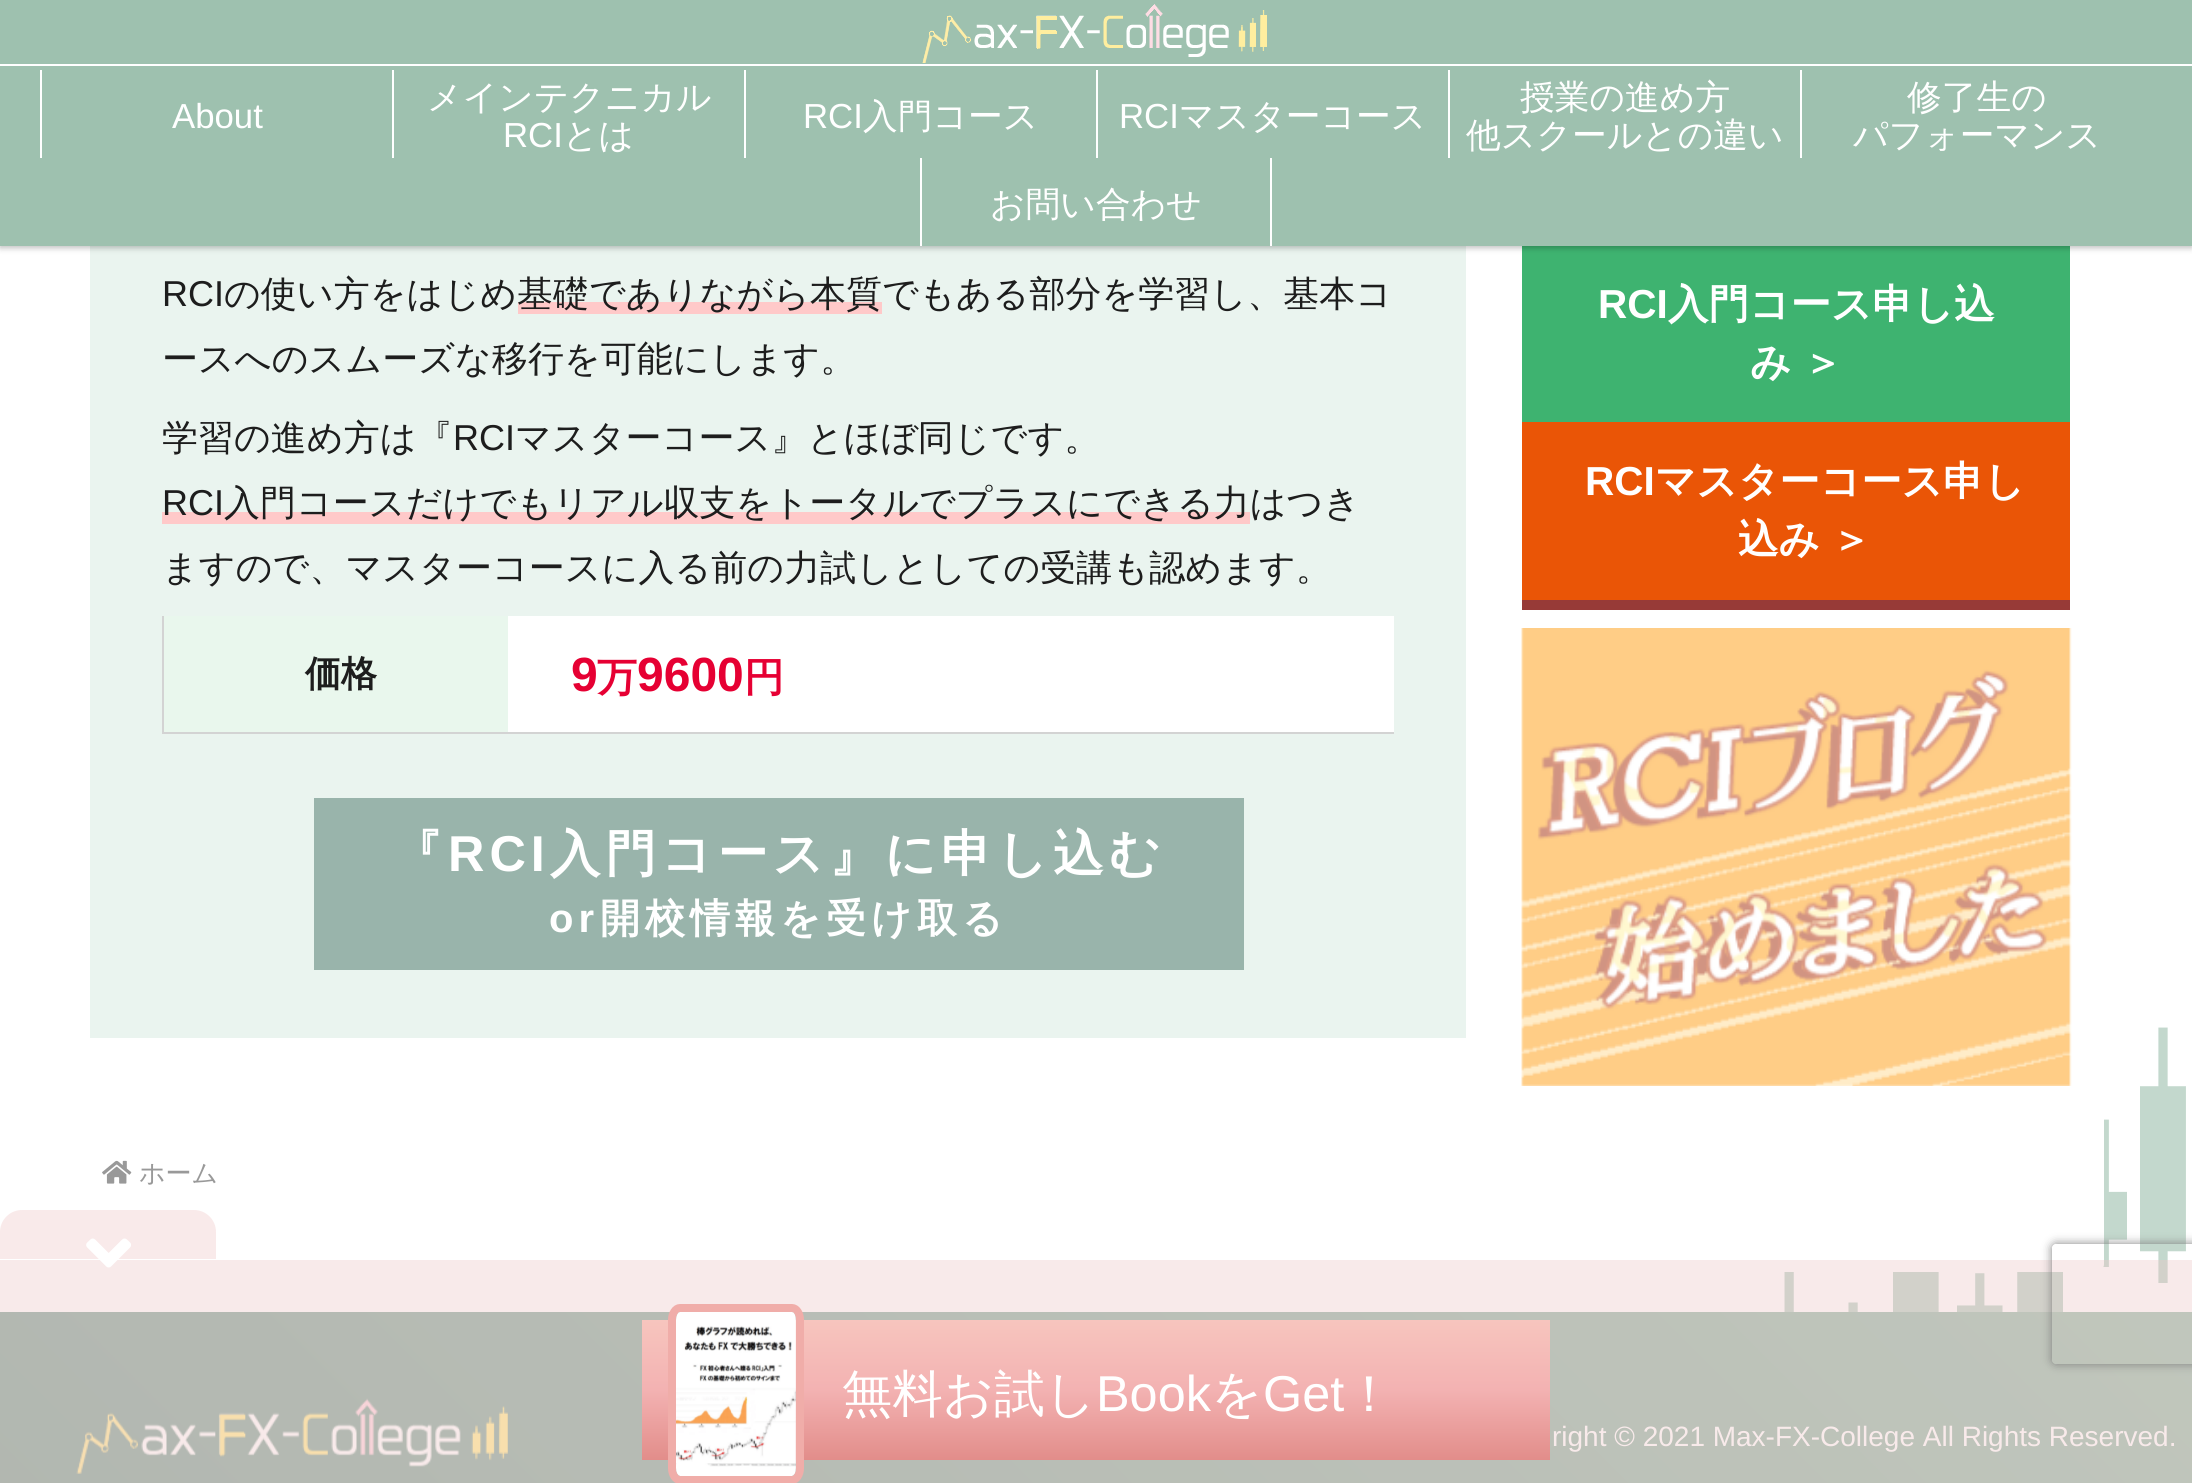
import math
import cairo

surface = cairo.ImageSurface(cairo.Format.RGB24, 2192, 1483)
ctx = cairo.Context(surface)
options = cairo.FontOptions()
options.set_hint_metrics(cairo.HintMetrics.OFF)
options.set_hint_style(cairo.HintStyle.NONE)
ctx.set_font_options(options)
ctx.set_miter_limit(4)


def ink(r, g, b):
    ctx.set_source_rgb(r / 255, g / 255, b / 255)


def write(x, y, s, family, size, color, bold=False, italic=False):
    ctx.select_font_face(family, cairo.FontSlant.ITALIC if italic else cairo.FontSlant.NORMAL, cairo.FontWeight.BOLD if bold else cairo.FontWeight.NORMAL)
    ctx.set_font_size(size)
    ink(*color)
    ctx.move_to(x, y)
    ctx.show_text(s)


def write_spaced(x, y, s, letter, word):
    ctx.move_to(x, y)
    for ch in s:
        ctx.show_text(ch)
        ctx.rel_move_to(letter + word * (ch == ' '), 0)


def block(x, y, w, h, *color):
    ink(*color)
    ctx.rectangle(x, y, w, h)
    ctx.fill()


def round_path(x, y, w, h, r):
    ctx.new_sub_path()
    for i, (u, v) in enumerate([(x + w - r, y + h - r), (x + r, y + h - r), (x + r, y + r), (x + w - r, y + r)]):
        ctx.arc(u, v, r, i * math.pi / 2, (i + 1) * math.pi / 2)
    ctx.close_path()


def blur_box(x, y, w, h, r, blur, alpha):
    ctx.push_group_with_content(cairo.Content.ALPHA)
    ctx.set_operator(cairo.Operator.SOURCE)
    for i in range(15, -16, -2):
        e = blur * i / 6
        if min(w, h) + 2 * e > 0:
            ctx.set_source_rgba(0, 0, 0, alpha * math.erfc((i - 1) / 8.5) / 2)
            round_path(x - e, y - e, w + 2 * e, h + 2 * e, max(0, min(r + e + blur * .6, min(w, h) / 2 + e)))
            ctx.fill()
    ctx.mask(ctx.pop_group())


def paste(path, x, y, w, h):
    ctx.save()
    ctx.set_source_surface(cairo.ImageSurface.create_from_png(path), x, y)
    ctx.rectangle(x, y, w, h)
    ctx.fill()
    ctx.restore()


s1 = dict(family="Liberation Sans", size=34.75, color=(255, 255, 255))
s2 = dict(family="WenQuanYi Zen Hei Medium", size=34.75, color=(255, 255, 255))
s3 = dict(family="Liberation Sans", size=36, color=(29, 29, 29))
s4 = dict(family="WenQuanYi Zen Hei Medium", size=36, color=(29, 29, 29))
s5 = dict(family="WenQuanYi Zen Hei", size=36, color=(29, 29, 29), bold=True)
s6 = dict(family="Liberation Sans", size=48, color=(230, 0, 51), bold=True)
s7 = dict(family="WenQuanYi Zen Hei", size=40, color=(230, 0, 51), bold=True)
s8 = dict(family="WenQuanYi Zen Hei Medium", size=26, color=(153, 153, 153))
s9 = dict(family="Liberation Sans", size=40.5, color=(255, 255, 255), bold=True)
s10 = dict(family="WenQuanYi Zen Hei", size=40.5, color=(255, 255, 255), bold=True)
s11 = dict(family="Liberation Sans", size=28, color=(255, 255, 255))
s12 = dict(family="WenQuanYi Zen Hei Medium", size=50.4, color=(255, 255, 255))
s13 = dict(family="Liberation Sans", size=50.4, color=(255, 255, 255))

ink(255, 255, 255)
ctx.paint()
paste("pic1.png", 1782, 1027, 404, 285)
block(90, 246, 1376, 792, 234, 244, 239)
ink(255, 255, 255)
round_path(1490, -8, 614, 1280, 8)
ctx.fill()
block(1522, 246, 548, 176, 62, 179, 112)
ink(0, 0, 0)
blur_box(0, 2, 2192, 246, 0, 3, 0.25)
block(0, 0, 2192, 246, 158, 193, 175)
paste("pic2.png", 922, 4, 345, 59)
block(0, 64, 2192, 2, 255, 255, 255)
block(40, 70, 2, 88, 255, 255, 255)
write(172, 128, "About", **s1)
block(392, 70, 2, 88, 255, 255, 255)
write(427, 109, "メインテクニカル", **s2)
write(503, 147, "RCI", **s1)
write(563, 147, "とは", **s2)
block(744, 70, 2, 88, 255, 255, 255)
write(803, 128, "RCI", **s1)
write(863, 128, "入門コース", **s2)
block(1096, 70, 2, 88, 255, 255, 255)
write(1119, 128, "RCI", **s1)
write(1179, 128, "マスターコース", **s2)
block(1448, 70, 2, 88, 255, 255, 255)
write(1520, 109, "授業の進め方", **s2)
write(1466, 147, "他スクールとの違い", **s2)
block(1800, 70, 2, 88, 255, 255, 255)
write(1907, 109, "修了生の", **s2)
write(1853, 147, "パフォーマンス", **s2)
block(1270, 158, 2, 88, 255, 255, 255)
block(920, 158, 2, 88, 255, 255, 255)
write(990, 216, "お問い合わせ", **s2)
write(162, 306, "RCI", **s3)
write(224, 306, "の使い方をはじめ", **s4)
block(518, 302, 364, 12, 255, 201, 201)
write(517, 306, "基礎でありながら本質でもある部分を学習し、基本コ", **s4)
write(162, 371, "ースへのスムーズな移行を可能にします。", **s4)
write(162, 450, "学習の進め方は『", **s4)
write(453, 450, "RCI", **s3)
write(515, 450, "マスターコース』とほぼ同じです。", **s4)
block(162, 512, 1088, 12, 255, 201, 201)
write(162, 515, "RCI", **s3)
write(224, 515, "入門コースだけでもリアル収支をトータルでプラスにできる力はつき", **s4)
write(162, 580, "ますので、マスターコースに入る前の力試しとしての受講も認めます。", **s4)
block(162, 732, 1232, 2, 211, 211, 211)
block(162, 616, 2, 118, 211, 211, 211)
block(164, 616, 344, 116, 233, 247, 237)
write(305, 686, "価格", **s5)
block(508, 616, 886, 116, 255, 255, 255)
write(571, 691, "9", **s6)
write(597, 691, "万", **s7)
write(637, 691, "9600", **s6)
write(744, 691, "円", **s7)
block(314, 798, 930, 172, 153, 180, 171)
ctx.set_font_size(50.4)
ink(255, 255, 255)
write_spaced(392, 871, "『", 5, 0)
ctx.select_font_face("Liberation Sans", cairo.FontSlant.NORMAL, cairo.FontWeight.BOLD)
write_spaced(448, 871, "RCI", 5, 0)
ctx.select_font_face("WenQuanYi Zen Hei", cairo.FontSlant.NORMAL, cairo.FontWeight.BOLD)
write_spaced(550, 871, "入門コース』に申し込む", 5, 0)
ctx.select_font_face("Liberation Sans", cairo.FontSlant.NORMAL, cairo.FontWeight.BOLD)
ctx.set_font_size(40)
write_spaced(549, 932, "or", 5, 0)
ctx.select_font_face("WenQuanYi Zen Hei", cairo.FontSlant.NORMAL, cairo.FontWeight.BOLD)
write_spaced(600, 932, "開校情報を受け取る", 5, 0)
paste("pic3.png", 102, 1160, 30, 24)
write(139, 1182, "ホーム", **s8)
write(1598, 318, "RCI", **s9)
write(1668, 318, "入門コース申し込", **s10)
write_spaced(1750, 376, "み ＞", 0, -1)
block(1522, 600, 548, 10, 151, 58, 55)
block(1522, 422, 548, 178, 234, 85, 6)
write(1585, 495, "RCI", **s9)
write(1655, 495, "マスターコース申し", **s10)
write_spaced(1738, 553, "込み ＞", 0, -1)
paste("pic4.png", 1521, 628, 551, 458)
gradient = cairo.LinearGradient(502, 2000, 1691, 811)
gradient.add_color_stop_rgba(0, 0.569, 0.686, 0.647, 1)
gradient.add_color_stop_rgba(1, 0.659, 0.78, 0.718, 1)
ctx.set_source(gradient)
ctx.rectangle(0, 1312, 2192, 171)
ctx.fill()
paste("pic7.png", 76, 1398, 432, 76)
write(1552, 1446, "right © 2021 Max-FX-College All Rights Reserved.", **s11)
ctx.set_source_rgba(0.933, 0.776, 0.776, 0.36)
ctx.rectangle(0, 1260, 2192, 223)
ctx.fill()
gradient = cairo.LinearGradient(108, 1300, 108, 1210)
gradient.add_color_stop_rgba(0, 1, 1, 1, 0)
gradient.add_color_stop_rgba(0.46, 0.933, 0.776, 0.776, 0)
gradient.add_color_stop_rgba(0.46, 0.933, 0.776, 0.776, 0.36)
gradient.add_color_stop_rgba(1, 0.933, 0.776, 0.776, 0.36)
ctx.set_source(gradient)
round_path(0, 1210, 216, 90, 22)
ctx.fill()
paste("pic5.png", 86, 1238, 45, 30)
gradient = cairo.LinearGradient(1096, 1320, 1096, 1460)
gradient.add_color_stop_rgba(0, 0.969, 0.773, 0.745, 1)
gradient.add_color_stop_rgba(0.5, 0.953, 0.698, 0.698, 1)
gradient.add_color_stop_rgba(1, 0.886, 0.553, 0.541, 1)
ctx.set_source(gradient)
ctx.rectangle(642, 1320, 908, 140)
ctx.fill()
ctx.new_path()
ctx.move_to(680, 1308)
ctx.line_to(792, 1308)
ctx.curve_to(796.5, 1308, 800, 1313.5, 800, 1320)
ctx.line_to(800, 1468)
ctx.curve_to(800, 1474.5, 796.5, 1480, 792, 1480)
ctx.line_to(680, 1480)
ctx.curve_to(675.5, 1480, 672, 1474.5, 672, 1468)
ctx.line_to(672, 1320)
ctx.curve_to(672, 1313.5, 675.5, 1308, 680, 1308)
ctx.close_path()
ink(240, 173, 169)
ctx.set_line_width(8)
ctx.stroke()
paste("pic6.png", 676, 1312, 120, 164)
write(842, 1411, "無料お試し", **s12)
write(1096, 1411, "Book", **s13)
write(1211, 1411, "を", **s12)
write(1263, 1411, "Get", **s13)
write(1344, 1411, "！", **s12)
ctx.save()
ctx.set_fill_rule(cairo.FillRule.EVEN_ODD)
ctx.new_path()
ctx.move_to(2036, 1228)
ctx.line_to(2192, 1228)
ctx.line_to(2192, 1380)
ctx.line_to(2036, 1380)
ctx.close_path()
ctx.move_to(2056, 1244)
ctx.line_to(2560, 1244)
ctx.curve_to(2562, 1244, 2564, 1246, 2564, 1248)
ctx.line_to(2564, 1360)
ctx.curve_to(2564, 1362, 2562, 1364, 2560, 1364)
ctx.line_to(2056, 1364)
ctx.curve_to(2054, 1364, 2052, 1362, 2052, 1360)
ctx.line_to(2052, 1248)
ctx.curve_to(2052, 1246, 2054, 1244, 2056, 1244)
ctx.close_path()
ctx.clip()
ink(128, 128, 128)
blur_box(2052, 1244, 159, 120, 4, 5, 1)
ctx.restore()
surface.write_to_png("screenshot.png")
